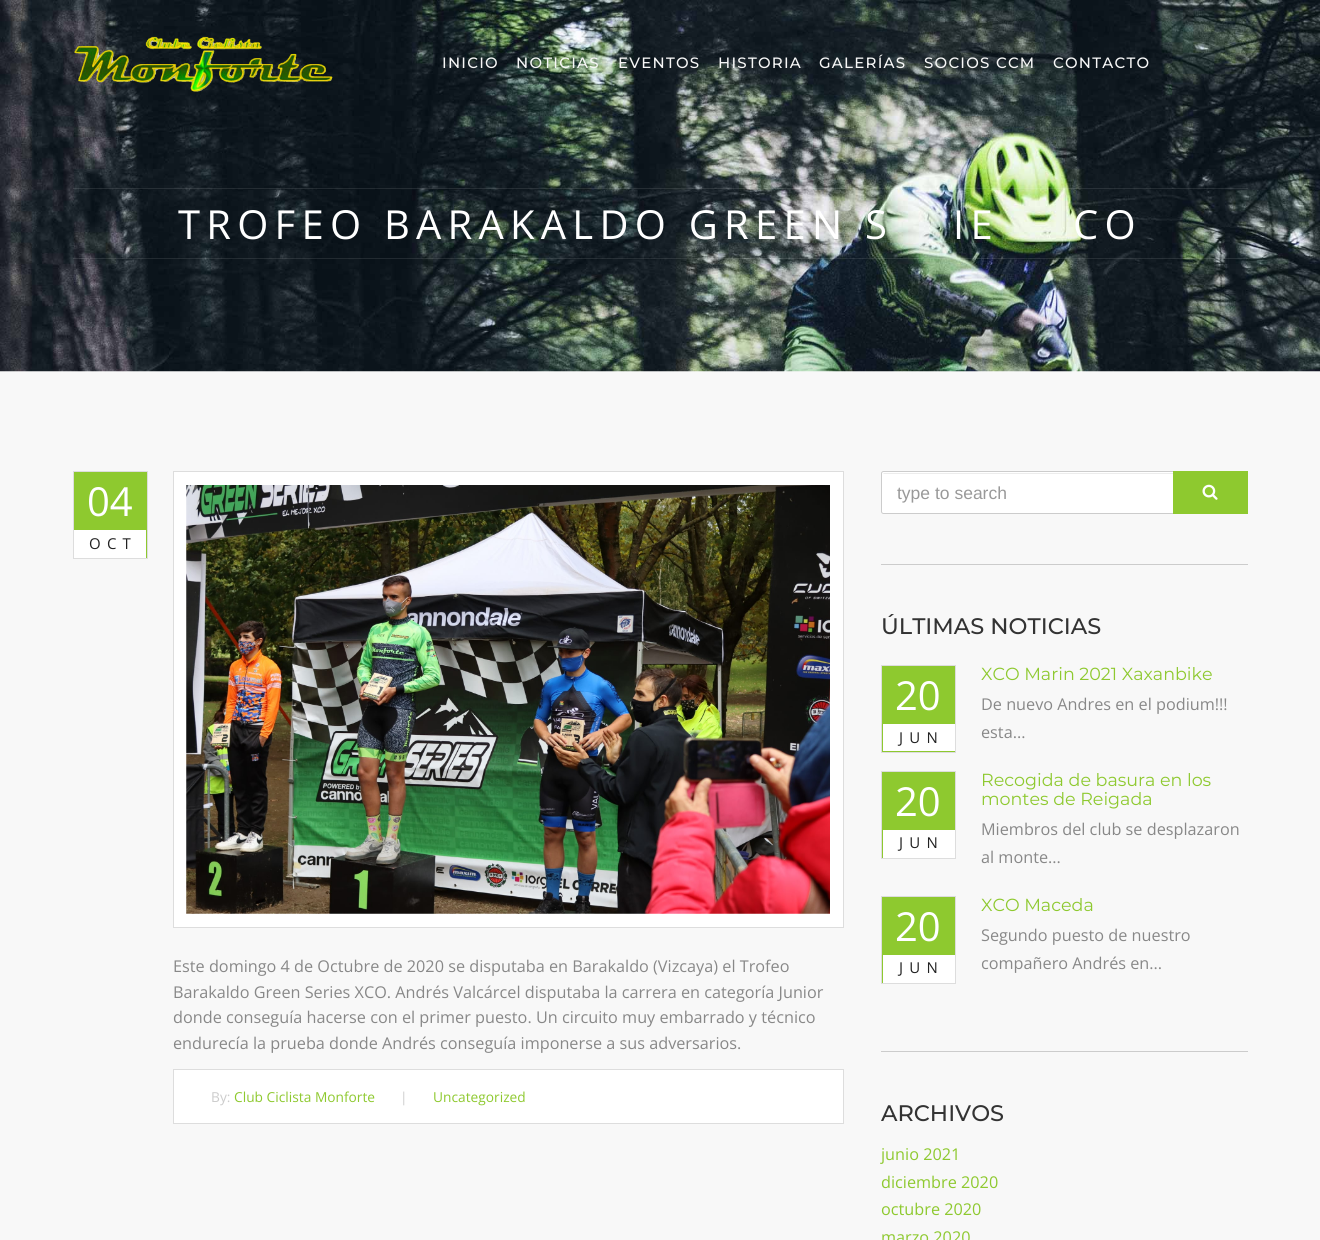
import math
import cairo

surface = cairo.ImageSurface(cairo.Format.RGB24, 1320, 1240)
ctx = cairo.Context(surface)
options = cairo.FontOptions()
options.set_hint_metrics(cairo.HintMetrics.OFF)
options.set_hint_style(cairo.HintStyle.NONE)
ctx.set_font_options(options)
ctx.set_miter_limit(4)


def ink(r, g, b):
    ctx.set_source_rgb(r / 255, g / 255, b / 255)


def write(x, y, s, family, size, color, bold=False, italic=False):
    ctx.select_font_face(family, cairo.FontSlant.ITALIC if italic else cairo.FontSlant.NORMAL, cairo.FontWeight.BOLD if bold else cairo.FontWeight.NORMAL)
    ctx.set_font_size(size)
    ink(*color)
    ctx.move_to(x, y)
    ctx.show_text(s)


def write_spaced(x, y, s, letter, word):
    ctx.move_to(x, y)
    for ch in s:
        ctx.show_text(ch)
        ctx.rel_move_to(letter + word * (ch == ' '), 0)


def block(x, y, w, h, *color):
    ink(*color)
    ctx.rectangle(x, y, w, h)
    ctx.fill()


def round_path(x, y, w, h, r):
    ctx.new_sub_path()
    for i, (u, v) in enumerate([(x + w - r, y + h - r), (x + r, y + h - r), (x + r, y + r), (x + w - r, y + r)]):
        ctx.arc(u, v, r, i * math.pi / 2, (i + 1) * math.pi / 2)
    ctx.close_path()


def paste(path, x, y, w, h):
    ctx.save()
    ctx.set_source_surface(cairo.ImageSurface.create_from_png(path), x, y)
    ctx.rectangle(x, y, w, h)
    ctx.fill()
    ctx.restore()


s1 = dict(family="Open Sans", size=40, color=(255, 255, 255))
s2 = dict(family="Open Sans", size=16.25, color=(136, 136, 136))
s3 = dict(family="Open Sans", size=13.75, color=(204, 204, 204))
s4 = dict(family="Open Sans", size=13.75, color=(142, 201, 47))
s5 = dict(family="Liberation Sans", size=17.5, color=(153, 153, 153))
s6 = dict(family="Montserrat Thin", size=22.5, color=(51, 51, 51))
s7 = dict(family="Montserrat", size=17.5, color=(142, 201, 47))
s8 = dict(family="Open Sans", size=16.25, color=(142, 201, 47))

ink(248, 248, 248)
ctx.paint()
paste("pic2.png", 0, 0, 1320, 372)
paste("pic1.png", 74, 36, 259, 56)
ctx.select_font_face("Montserrat Thin")
ctx.set_font_size(15)
ink(247, 247, 247)
write_spaced(442, 68, "INICIO", 1.25, 0)
write_spaced(516, 68, "NOTICIAS", 1.25, 0)
write_spaced(618, 68, "EVENTOS", 1.25, 0)
write_spaced(718, 68, "HISTORIA", 1.25, 0)
write_spaced(819, 68, "GALERÍAS", 1.25, 0)
write_spaced(924, 68, "SOCIOS CCM", 1.25, 0)
write_spaced(1053, 68, "CONTACTO", 1.25, 0)
ctx.set_source_rgba(1, 1, 1, 0.1)
ctx.rectangle(73, 188, 1175, 1)
ctx.fill()
ctx.rectangle(73, 258, 1175, 1)
ctx.fill()
ctx.select_font_face("Open Sans")
ctx.set_font_size(40)
ink(255, 255, 255)
write_spaced(178, 239, "TROFEO BARAKALDO GREEN S", 6.25, 0)
write_spaced(953, 239, "IE", 6.25, 0)
write_spaced(1073, 239, "CO", 6.25, 0)
ink(142, 201, 47)
ctx.rectangle(73.5, 471.5, 74, 87)
ctx.fill_preserve()
ink(221, 221, 221)
ctx.set_line_width(1)
ctx.stroke()
write(87, 516, "04", **s1)
block(74, 530, 72, 28, 255, 255, 255)
ctx.set_font_size(15)
ink(34, 34, 34)
write_spaced(89, 549, "OCT", 6.25, 0)
ink(255, 255, 255)
ctx.rectangle(173.5, 471.5, 670, 456)
ctx.fill_preserve()
ink(221, 221, 221)
ctx.stroke()
paste("pic3.png", 186, 485, 644, 429)
write(173, 972, "Este domingo 4 de Octubre de 2020 se disputaba en Barakaldo (Vizcaya) el Trofeo", **s2)
write(173, 998, "Barakaldo Green Series XCO. Andrés Valcárcel disputaba la carrera en categoría Junior", **s2)
write(173, 1023, "donde conseguía hacerse con el primer puesto. Un circuito muy embarrado y técnico", **s2)
write(173, 1049, "endurecía la prueba donde Andrés conseguía imponerse a sus adversarios.", **s2)
ink(255, 255, 255)
ctx.rectangle(173.5, 1069.5, 670, 54)
ctx.fill_preserve()
ink(221, 221, 221)
ctx.stroke()
write(211, 1102, "By:", **s3)
write(234, 1102, "Club Ciclista Monforte", **s4)
write(400, 1102, "|", **s3)
write(433, 1102, "Uncategorized", **s4)
block(881, 564, 367, 1, 204, 204, 204)
ink(255, 255, 255)
round_path(881, 471, 367, 43, 2.5)
ctx.fill()
ink(236, 236, 236)
ctx.new_path()
ctx.move_to(884, 474)
ctx.line_to(1245, 474)
ctx.curve_to(1246, 474, 1246, 474, 1246, 475)
ctx.line_to(1246, 473)
ctx.line_to(884, 473)
ctx.line_to(883, 474)
ctx.close_path()
ctx.fill()
round_path(881.5, 471.5, 366, 42, 2)
ink(204, 204, 204)
ctx.stroke()
write(897, 499, "type to search", **s5)
block(1173, 471, 75, 43, 142, 201, 47)
paste("pic4.png", 1202, 484, 16, 16)
block(881, 1051, 367, 1, 204, 204, 204)
write(881, 634, "ÚLTIMAS NOTICIAS", **s6)
ink(142, 201, 47)
ctx.rectangle(881.5, 665.5, 74, 87)
ctx.fill_preserve()
ink(221, 221, 221)
ctx.stroke()
write(895, 710, "20", **s1)
block(883, 724, 72, 27, 255, 255, 255)
ctx.set_font_size(15)
ink(34, 34, 34)
write_spaced(899, 743, "JUN", 6.25, 0)
write(981, 680, "XCO Marin 2021 Xaxanbike", **s7)
write(981, 710, "De nuevo Andres en el podium!!!", **s2)
write(981, 738, "esta...", **s2)
ink(142, 201, 47)
ctx.rectangle(881.5, 771.5, 74, 87)
ctx.fill_preserve()
ink(221, 221, 221)
ctx.stroke()
write(895, 816, "20", **s1)
block(883, 830, 72, 28, 255, 255, 255)
ctx.set_font_size(15)
ink(34, 34, 34)
write_spaced(899, 848, "JUN", 6.25, 0)
write(981, 786, "Recogida de basura en los", **s7)
write(981, 805, "montes de Reigada", **s7)
write(981, 835, "Miembros del club se desplazaron", **s2)
write(981, 863, "al monte...", **s2)
ink(142, 201, 47)
ctx.rectangle(881.5, 896.5, 74, 87)
ctx.fill_preserve()
ink(221, 221, 221)
ctx.stroke()
write(895, 941, "20", **s1)
block(883, 955, 72, 28, 255, 255, 255)
ctx.set_font_size(15)
ink(34, 34, 34)
write_spaced(899, 973, "JUN", 6.25, 0)
write(981, 911, "XCO Maceda", **s7)
write(981, 941, "Segundo puesto de nuestro", **s2)
write(981, 969, "compañero Andrés en...", **s2)
write(881, 1121, "ARCHIVOS", **s6)
write(881, 1160, "junio 2021", **s8)
write(881, 1188, "diciembre 2020", **s8)
write(881, 1215, "octubre 2020", **s8)
write(881, 1243, "marzo 2020", **s8)
surface.write_to_png("screenshot.png")
